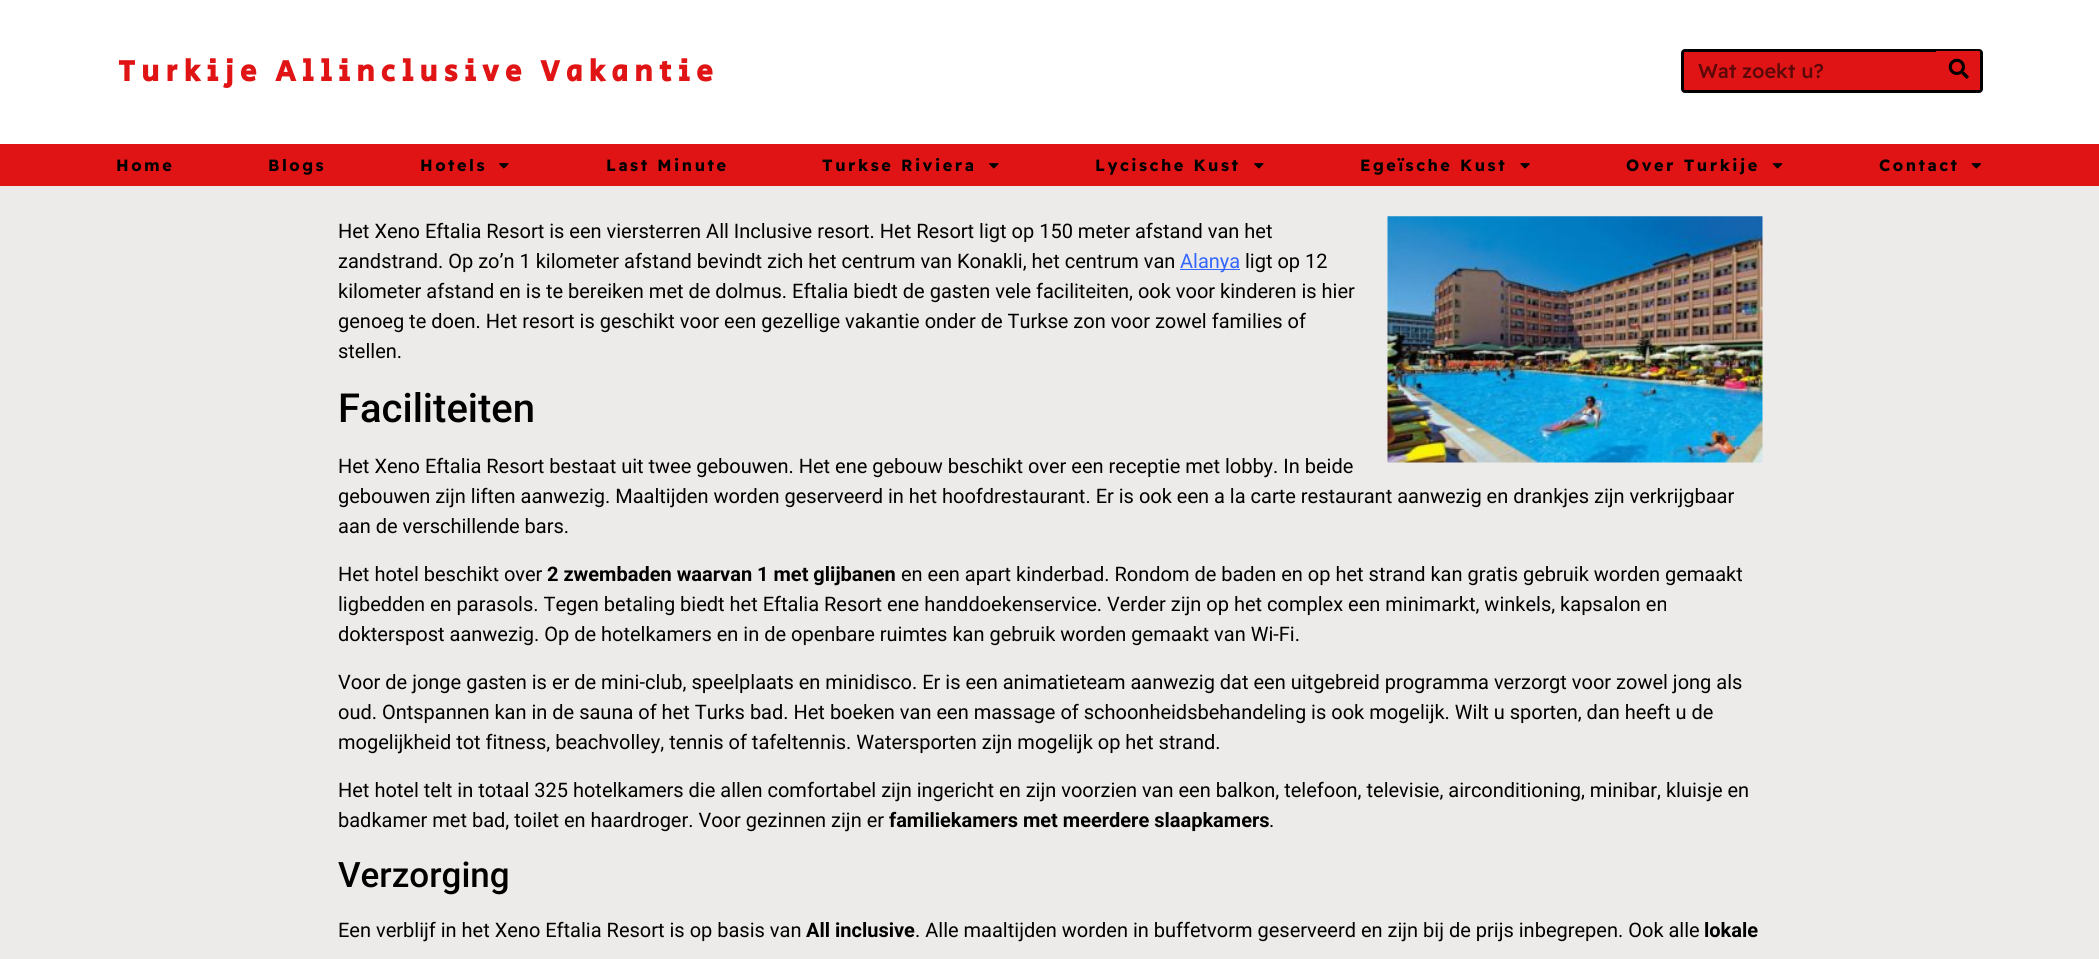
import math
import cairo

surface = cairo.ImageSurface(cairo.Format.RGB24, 2099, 959)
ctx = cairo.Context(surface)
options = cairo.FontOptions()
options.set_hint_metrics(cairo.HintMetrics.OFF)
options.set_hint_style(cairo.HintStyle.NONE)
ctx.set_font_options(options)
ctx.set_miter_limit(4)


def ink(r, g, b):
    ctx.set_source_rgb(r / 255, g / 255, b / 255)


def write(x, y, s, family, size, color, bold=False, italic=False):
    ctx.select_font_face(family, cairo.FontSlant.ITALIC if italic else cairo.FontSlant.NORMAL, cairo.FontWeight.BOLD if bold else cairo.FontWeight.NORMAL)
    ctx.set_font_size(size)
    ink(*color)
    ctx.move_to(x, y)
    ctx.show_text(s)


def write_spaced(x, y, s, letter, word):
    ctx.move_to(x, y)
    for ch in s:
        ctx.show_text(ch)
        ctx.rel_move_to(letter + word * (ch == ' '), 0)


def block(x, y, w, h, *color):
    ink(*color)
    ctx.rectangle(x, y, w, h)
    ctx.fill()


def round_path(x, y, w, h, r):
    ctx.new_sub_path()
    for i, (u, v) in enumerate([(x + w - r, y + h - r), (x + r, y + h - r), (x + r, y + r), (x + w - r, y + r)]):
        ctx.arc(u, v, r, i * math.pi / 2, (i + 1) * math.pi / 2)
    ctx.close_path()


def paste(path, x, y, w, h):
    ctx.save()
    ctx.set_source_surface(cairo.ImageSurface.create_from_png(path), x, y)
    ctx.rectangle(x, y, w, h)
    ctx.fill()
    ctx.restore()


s1 = dict(family="Roboto", size=20, color=(0, 0, 0))
s2 = dict(family="Roboto", size=20, color=(51, 102, 255))
s3 = dict(family="Roboto Medium", size=40, color=(0, 0, 0))
s4 = dict(family="Roboto", size=20, color=(0, 0, 0), bold=True)
s5 = dict(family="Roboto Medium", size=35, color=(0, 0, 0))

ink(237, 235, 233)
ctx.paint()
block(0, 0, 2099, 144, 255, 255, 255)
ctx.select_font_face("Secular One", cairo.FontSlant.NORMAL, cairo.FontWeight.BOLD)
ctx.set_font_size(30)
ink(224, 20, 20)
write_spaced(118, 81, "Turkije Allinclusive Vakantie", 6.25, 0)
round_path(1682.5, 50.5, 299, 41, 2.5)
ctx.fill_preserve()
ink(0, 0, 0)
ctx.set_line_width(3)
ctx.stroke()
ctx.select_font_face("Readex Pro Medium")
ctx.set_font_size(20)
ink(90, 8, 8)
write_spaced(1698, 78, "Wat zoekt u?", -0.1, 0)
ink(224, 20, 20)
ctx.new_path()
ctx.move_to(1936, 51)
ctx.line_to(1979, 51)
ctx.curve_to(1979.5, 51, 1980, 51.5, 1980, 52)
ctx.line_to(1980, 89)
ctx.curve_to(1980, 89.5, 1979.5, 90, 1979, 90)
ctx.line_to(1936, 90)
ctx.close_path()
ctx.fill()
paste("pic1.png", 1948, 58, 21, 21)
block(0, 144, 2099, 42, 224, 20, 20)
ctx.select_font_face("Readex Pro", cairo.FontSlant.NORMAL, cairo.FontWeight.BOLD)
ctx.set_font_size(16.25)
ink(0, 0, 0)
write_spaced(116, 171, "Home", 2.5, 0)
write_spaced(268, 171, "Blogs", 2.5, 0)
write_spaced(420, 171, "Hotels", 2.5, 0)
paste("pic2.png", 499, 163, 10, 6)
write_spaced(606, 171, "Last Minute", 2.5, 0)
write_spaced(822, 171, "Turkse Riviera", 2.5, 0)
paste("pic2.png", 989, 163, 10, 6)
write_spaced(1095, 171, "Lycische Kust", 2.5, 0)
paste("pic2.png", 1254, 163, 10, 6)
write_spaced(1360, 171, "Egeïsche Kust", 2.5, 0)
paste("pic3.png", 1520, 163, 10, 6)
write_spaced(1626, 171, "Over Turkije", 2.5, 0)
paste("pic4.png", 1772, 163, 11, 6)
write_spaced(1879, 171, "Contact", 2.5, 0)
paste("pic5.png", 1971, 163, 10, 6)
write(338, 238, "Het Xeno Eftalia Resort is een viersterren All Inclusive resort. Het Resort ligt op 150 meter afstand van het", **s1)
paste("pic6.png", 1387, 216, 376, 247)
write(338, 268, "zandstrand. Op zo’n 1 kilometer afstand bevindt zich het centrum van Konakli, het centrum van", **s1)
block(1180, 269, 60, 1, 51, 102, 255)
write(1180, 268, "Alanya", **s2)
write(1245, 268, "ligt op 12", **s1)
write(338, 298, "kilometer afstand en is te bereiken met de dolmus. Eftalia biedt de gasten vele faciliteiten, ook voor kinderen is hier", **s1)
write(338, 328, "genoeg te doen. Het resort is geschikt voor een gezellige vakantie onder de Turkse zon voor zowel families of", **s1)
write(338, 358, "stellen.", **s1)
write(338, 422, "Faciliteiten", **s3)
write(338, 473, "Het Xeno Eftalia Resort bestaat uit twee gebouwen. Het ene gebouw beschikt over een receptie met lobby. In beide", **s1)
write(338, 503, "gebouwen zijn liften aanwezig. Maaltijden worden geserveerd in het hoofdrestaurant. Er is ook een a la carte restaurant aanwezig en drankjes zijn verkrijgbaar", **s1)
write(338, 533, "aan de verschillende bars.", **s1)
write(338, 581, "Het hotel beschikt over", **s1)
write(547, 581, "2 zwembaden waarvan 1 met glijbanen", **s4)
write(901, 581, "en een apart kinderbad. Rondom de baden en op het strand kan gratis gebruik worden gemaakt", **s1)
write(338, 611, "ligbedden en parasols. Tegen betaling biedt het Eftalia Resort ene handdoekenservice. Verder zijn op het complex een minimarkt, winkels, kapsalon en", **s1)
write(338, 641, "dokterspost aanwezig. Op de hotelkamers en in de openbare ruimtes kan gebruik worden gemaakt van Wi-Fi.", **s1)
write(338, 689, "Voor de jonge gasten is er de mini-club, speelplaats en minidisco. Er is een animatieteam aanwezig dat een uitgebreid programma verzorgt voor zowel jong als", **s1)
write(338, 719, "oud. Ontspannen kan in de sauna of het Turks bad. Het boeken van een massage of schoonheidsbehandeling is ook mogelijk. Wilt u sporten, dan heeft u de", **s1)
write(338, 749, "mogelijkheid tot fitness, beachvolley, tennis of tafeltennis. Watersporten zijn mogelijk op het strand.", **s1)
write(338, 797, "Het hotel telt in totaal 325 hotelkamers die allen comfortabel zijn ingericht en zijn voorzien van een balkon, telefoon, televisie, airconditioning, minibar, kluisje en", **s1)
write(338, 827, "badkamer met bad, toilet en haardroger. Voor gezinnen zijn er", **s1)
write(889, 827, "familiekamers met meerdere slaapkamers", **s4)
write(1269, 827, ".", **s1)
write(338, 887, "Verzorging", **s5)
write(338, 937, "Een verblijf in het Xeno Eftalia Resort is op basis van", **s1)
write(806, 937, "All inclusive", **s4)
write(915, 937, ". Alle maaltijden worden in buffetvorm geserveerd en zijn bij de prijs inbegrepen. Ook alle", **s1)
write(1704, 937, "lokale", **s4)
surface.write_to_png("screenshot.png")
